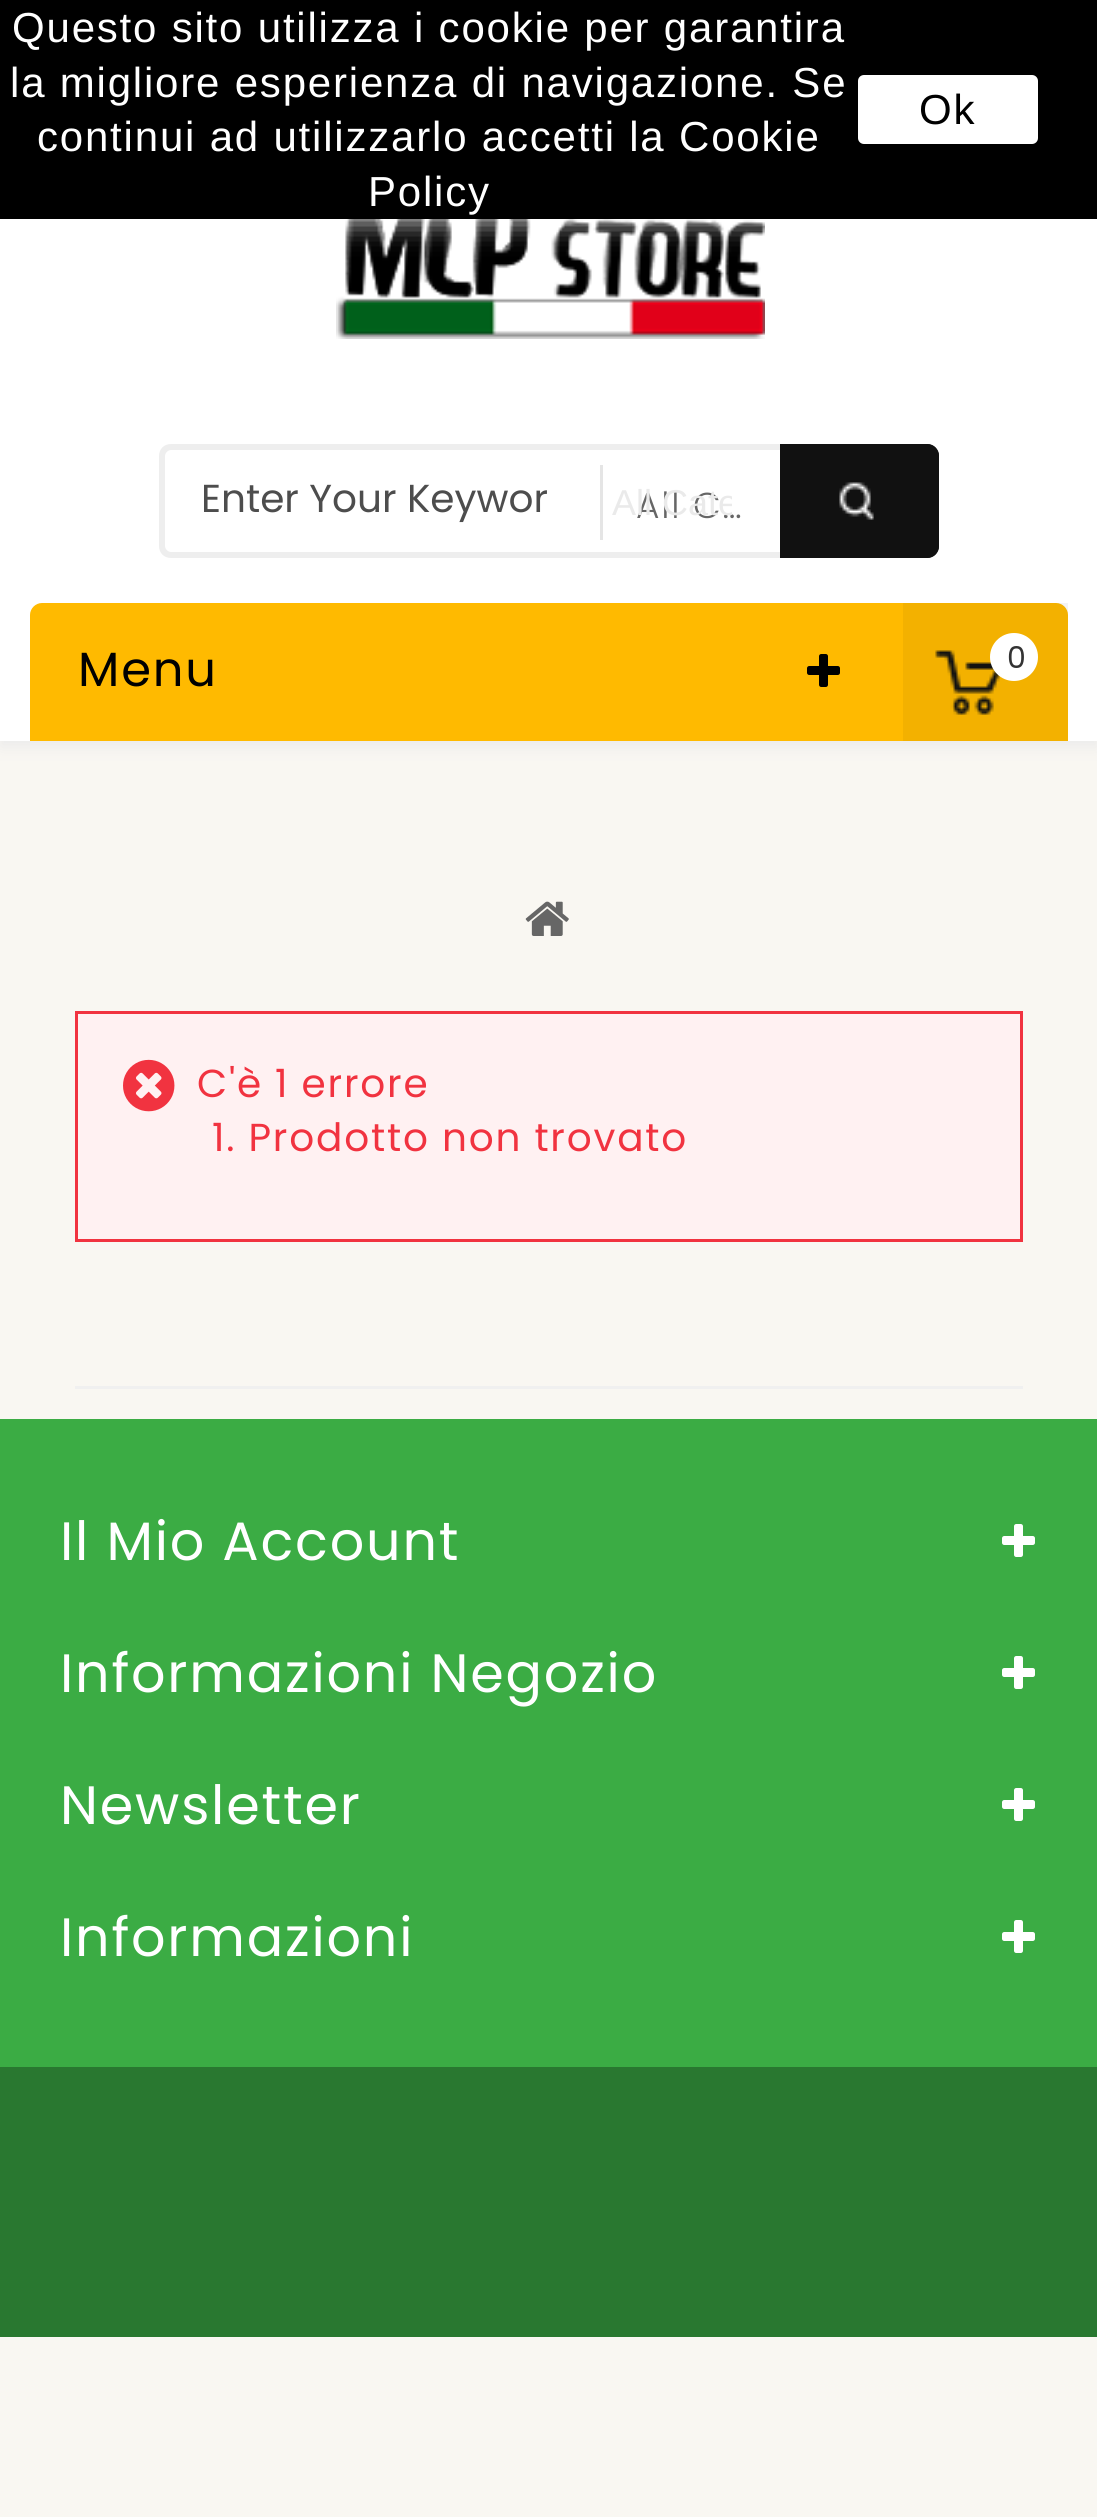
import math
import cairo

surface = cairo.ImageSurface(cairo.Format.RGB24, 1097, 2517)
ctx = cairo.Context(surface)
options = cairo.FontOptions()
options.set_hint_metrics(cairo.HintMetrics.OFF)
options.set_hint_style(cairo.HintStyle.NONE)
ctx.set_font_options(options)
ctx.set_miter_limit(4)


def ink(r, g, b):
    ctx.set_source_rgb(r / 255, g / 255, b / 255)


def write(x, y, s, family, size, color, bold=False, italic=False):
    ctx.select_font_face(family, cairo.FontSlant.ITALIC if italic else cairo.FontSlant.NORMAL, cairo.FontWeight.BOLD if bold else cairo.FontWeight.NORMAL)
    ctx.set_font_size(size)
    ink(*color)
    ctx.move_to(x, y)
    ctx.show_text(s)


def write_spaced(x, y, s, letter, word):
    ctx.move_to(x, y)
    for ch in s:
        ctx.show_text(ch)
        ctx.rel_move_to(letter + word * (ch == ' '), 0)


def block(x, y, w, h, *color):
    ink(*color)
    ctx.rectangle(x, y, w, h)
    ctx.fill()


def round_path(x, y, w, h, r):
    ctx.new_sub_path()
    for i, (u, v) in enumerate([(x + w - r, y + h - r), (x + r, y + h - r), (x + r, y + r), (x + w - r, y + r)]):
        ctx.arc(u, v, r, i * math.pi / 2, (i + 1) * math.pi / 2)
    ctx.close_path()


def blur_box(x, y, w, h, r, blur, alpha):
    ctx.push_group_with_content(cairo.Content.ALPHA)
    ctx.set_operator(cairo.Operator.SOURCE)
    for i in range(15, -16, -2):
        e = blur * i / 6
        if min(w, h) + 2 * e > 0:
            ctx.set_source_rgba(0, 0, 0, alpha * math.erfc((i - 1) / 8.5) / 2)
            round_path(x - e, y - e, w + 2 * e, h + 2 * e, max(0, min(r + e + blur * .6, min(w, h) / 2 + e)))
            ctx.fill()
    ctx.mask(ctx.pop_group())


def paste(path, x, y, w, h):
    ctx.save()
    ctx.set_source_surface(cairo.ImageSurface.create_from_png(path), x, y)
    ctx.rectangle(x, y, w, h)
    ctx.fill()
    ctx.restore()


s1 = dict(family="Poppins", size=39, color=(77, 77, 77))
s2 = dict(family="Liberation Sans", size=36, color=(234, 234, 234))

ink(249, 247, 242)
ctx.paint()
block(0, 1419, 1097, 648, 59, 172, 68)
block(0, 219, 1097, 522, 255, 255, 255)
ctx.save()
ctx.rectangle(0, 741, 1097, 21)
ctx.clip()
ink(235, 235, 235)
blur_box(0, 114, 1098, 633, 0, 7.5, 1)
ctx.restore()
paste("pic2.png", 336, 219, 429, 120)
ink(255, 255, 255)
blur_box(0, 0, 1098, 219, 0, 15, 1)
block(0, 0, 1097, 219, 0, 0, 0)
ctx.select_font_face("Liberation Sans")
ctx.set_font_size(42)
ink(255, 255, 255)
write_spaced(12, 42, "Questo sito utilizza i cookie per garantira", 1.8, 0)
write_spaced(10, 97, "la migliore esperienza di navigazione. Se", 1.8, 0)
write_spaced(37, 151, "continui ad utilizzarlo accetti la Cookie", 1.8, 0)
write_spaced(368, 206, "Policy", 1.8, 0)
round_path(858, 75, 180, 69, 6)
ctx.fill()
ink(0, 0, 0)
write_spaced(919, 124, "Ok", 1.8, 0)
ctx.select_font_face("Poppins")
ctx.set_font_size(54)
ink(255, 255, 255)
write_spaced(60, 1560, "Il Mio Account", 1.8, 0)
paste("pic1.png", 1002, 1524, 33, 33)
write_spaced(60, 1692, "Informazioni Negozio", 1.8, 0)
paste("pic1.png", 1002, 1656, 33, 33)
write_spaced(60, 1824, "Newsletter", 1.8, 0)
paste("pic1.png", 1002, 1788, 33, 33)
write_spaced(60, 1956, "Informazioni", 1.8, 0)
paste("pic1.png", 1002, 1920, 33, 33)
block(0, 2067, 1097, 270, 41, 120, 48)
ink(238, 238, 238)
ctx.set_fill_rule(cairo.FillRule.EVEN_ODD)
ctx.new_path()
ctx.move_to(171, 444)
ctx.line_to(600, 444)
ctx.line_to(600, 558)
ctx.line_to(171, 558)
ctx.curve_to(164, 558, 159, 553, 159, 546)
ctx.line_to(159, 456)
ctx.curve_to(159, 449, 164, 444, 171, 444)
ctx.close_path()
ctx.move_to(171, 450)
ctx.line_to(600, 450)
ctx.line_to(600, 552)
ctx.line_to(171, 552)
ctx.curve_to(168, 552, 165, 549, 165, 546)
ctx.line_to(165, 456)
ctx.curve_to(165, 453, 168, 450, 171, 450)
ctx.close_path()
ctx.fill()
write(201, 512, "Enter Your Keywor", **s1)
block(600, 444, 180, 6, 238, 238, 238)
block(600, 552, 180, 6, 238, 238, 238)
block(600, 465, 3, 75, 229, 229, 229)
ctx.select_font_face("Poppins Light")
ctx.set_font_size(36)
ink(102, 102, 102)
write_spaced(636, 518, "All C…", 1.8, 0)
ctx.save()
ctx.set_fill_rule(cairo.FillRule.WINDING)
ctx.rectangle(612, 480, 120, 48)
ctx.clip()
write(612, 515, "All Cate", **s2)
ctx.restore()
ink(17, 17, 17)
ctx.new_path()
ctx.move_to(780, 444)
ctx.line_to(927, 444)
ctx.curve_to(933.5, 444, 939, 449.5, 939, 456)
ctx.line_to(939, 546)
ctx.curve_to(939, 552.5, 933.5, 558, 927, 558)
ctx.line_to(780, 558)
ctx.close_path()
ctx.fill()
paste("pic3.png", 839, 482, 35, 38)
ctx.new_path()
ctx.move_to(781.5, 445.5)
ctx.line_to(927, 445.5)
ctx.curve_to(933, 445.5, 937.5, 450, 937.5, 456)
ctx.line_to(937.5, 546)
ctx.curve_to(937.5, 552, 933, 556.5, 927, 556.5)
ctx.line_to(781.5, 556.5)
ctx.close_path()
ctx.set_line_width(3)
ctx.stroke()
ink(255, 186, 0)
ctx.new_path()
ctx.move_to(42, 603)
ctx.line_to(1056, 603)
ctx.curve_to(1062.5, 603, 1068, 608.5, 1068, 615)
ctx.line_to(1068, 741)
ctx.line_to(30, 741)
ctx.line_to(30, 615)
ctx.curve_to(30, 608.5, 35.5, 603, 42, 603)
ctx.close_path()
ctx.fill()
ctx.select_font_face("Poppins")
ctx.set_font_size(48)
ink(0, 0, 0)
write_spaced(78, 686, "Menu", 1.8, 0)
paste("pic4.png", 807, 654, 33, 33)
ctx.set_source_rgba(0, 0, 0, 0.05)
ctx.rectangle(903, 603, 165, 138)
ctx.fill()
paste("pic5.png", 935, 650, 65, 65)
ink(255, 255, 255)
ctx.arc(1014, 657, 24, 0, 2 * math.pi)
ctx.fill()
ctx.set_font_size(30)
ink(51, 51, 51)
write_spaced(1007, 668, "0", 1.8, 0)
paste("pic6.png", 525, 901, 44, 35)
ink(255, 241, 242)
ctx.rectangle(76.5, 1012.5, 945, 228)
ctx.fill_preserve()
ink(241, 51, 64)
ctx.stroke()
paste("pic7.png", 123, 1059, 52, 53)
ctx.set_font_size(39)
write_spaced(197, 1097, "C'è 1 errore", 1.8, 0)
write_spaced(212, 1151, "1. Prodotto non trovato", 1.8, 0)
block(75, 1386, 948, 3, 240, 240, 240)
surface.write_to_png("screenshot.png")
